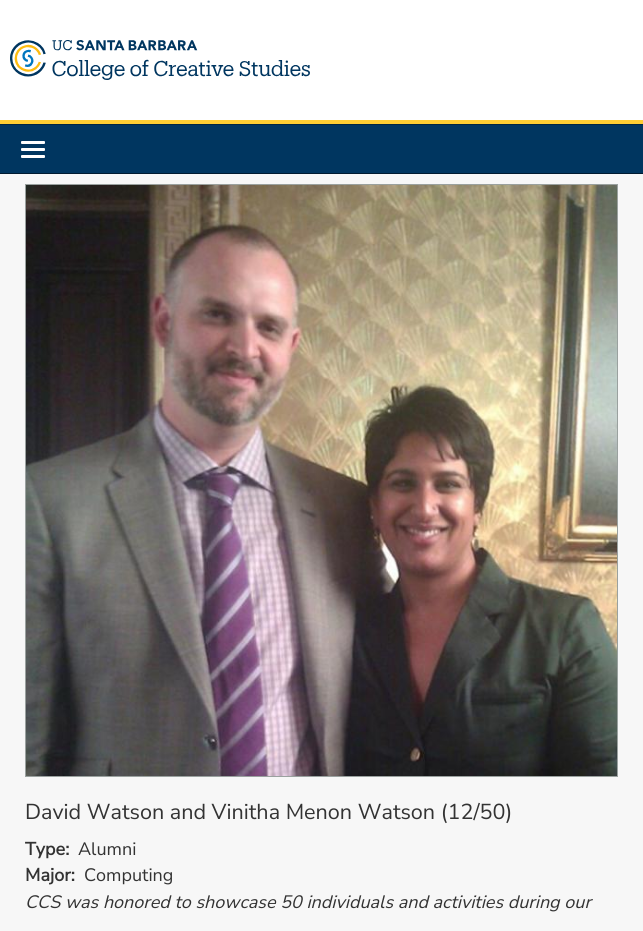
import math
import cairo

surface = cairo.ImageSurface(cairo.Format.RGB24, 643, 931)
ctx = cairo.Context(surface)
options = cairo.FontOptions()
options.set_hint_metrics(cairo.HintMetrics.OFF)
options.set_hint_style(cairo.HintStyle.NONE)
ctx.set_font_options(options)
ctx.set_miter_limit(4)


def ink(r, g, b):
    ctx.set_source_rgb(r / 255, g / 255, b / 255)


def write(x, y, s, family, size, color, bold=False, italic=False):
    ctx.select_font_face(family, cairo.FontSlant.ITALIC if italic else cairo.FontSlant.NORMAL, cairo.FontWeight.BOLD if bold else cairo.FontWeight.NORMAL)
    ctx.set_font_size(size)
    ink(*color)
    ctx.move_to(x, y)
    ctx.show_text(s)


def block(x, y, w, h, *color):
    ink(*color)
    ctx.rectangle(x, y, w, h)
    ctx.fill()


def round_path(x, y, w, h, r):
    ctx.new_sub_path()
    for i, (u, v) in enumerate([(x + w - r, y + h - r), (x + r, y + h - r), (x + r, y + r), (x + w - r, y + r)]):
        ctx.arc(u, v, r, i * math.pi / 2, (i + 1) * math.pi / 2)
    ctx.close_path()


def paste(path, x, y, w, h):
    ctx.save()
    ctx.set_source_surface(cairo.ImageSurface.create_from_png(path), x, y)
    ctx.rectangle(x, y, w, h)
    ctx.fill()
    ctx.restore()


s1 = dict(family="Nunito Sans ExtraLight", size=21.6, color=(51, 51, 51))
s2 = dict(family="Nunito Sans", size=18, color=(51, 51, 51), bold=True)
s3 = dict(family="Nunito Sans ExtraLight", size=18, color=(51, 51, 51))
s4 = dict(family="Nunito Sans ExtraLight", size=18, color=(51, 51, 51), italic=True)

ink(255, 255, 255)
ctx.paint()
block(0, 120, 643, 4, 255, 206, 52)
paste("pic1.png", 10, 40, 300, 40)
block(0, 125, 643, 48, 0, 54, 96)
block(0, 124, 643, 1, 0, 38, 67)
block(0, 173, 643, 1, 0, 27, 48)
ink(255, 255, 255)
round_path(21, 141, 24, 3, 1)
ctx.fill()
round_path(21, 148, 24, 3, 1)
ctx.fill()
round_path(21, 155, 24, 3, 1)
ctx.fill()
block(0, 174, 643, 757, 247, 247, 247)
ctx.rectangle(25.5, 184.5, 592, 592)
ink(154, 161, 159)
ctx.set_line_width(1)
ctx.stroke()
paste("pic2.png", 26, 185, 591, 591)
write(25, 819, "David Watson and Vinitha Menon Watson (12/50)", **s1)
write(25, 855, "Type:", **s2)
write(78, 855, "Alumni", **s3)
write(25, 881, "Major:", **s2)
write(84, 881, "Computing", **s3)
write(25, 908, "CCS was honored to showcase 50 individuals and activities during our", **s4)
surface.write_to_png("screenshot.png")
